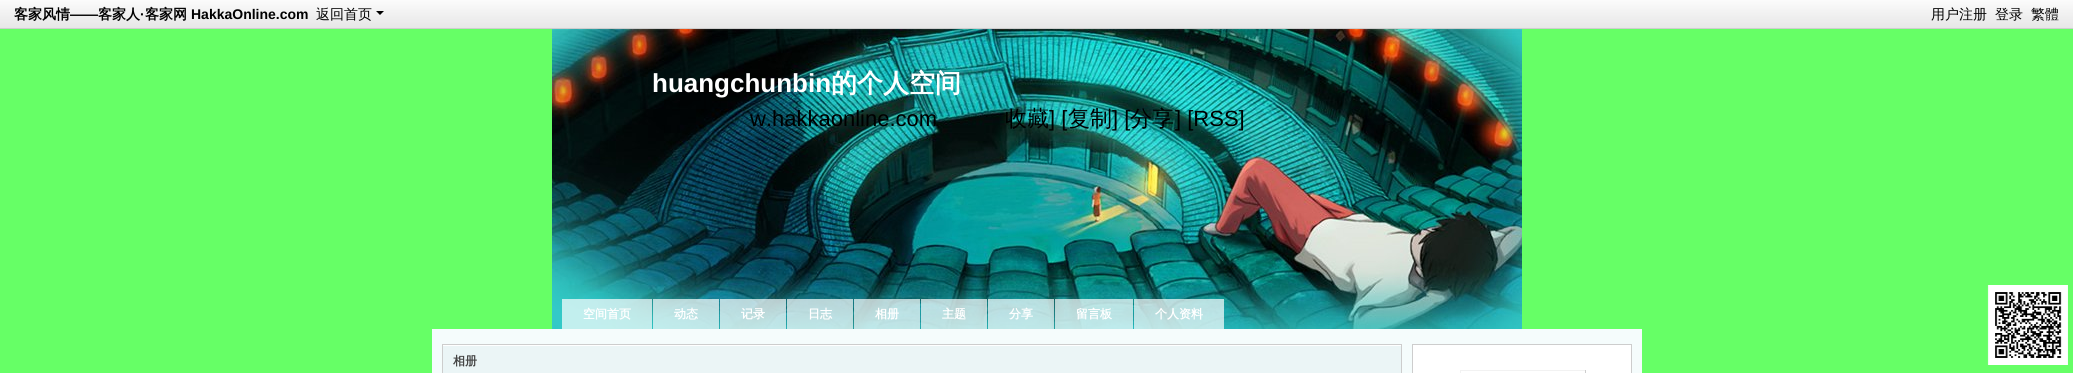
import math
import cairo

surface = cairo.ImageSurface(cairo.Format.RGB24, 2073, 373)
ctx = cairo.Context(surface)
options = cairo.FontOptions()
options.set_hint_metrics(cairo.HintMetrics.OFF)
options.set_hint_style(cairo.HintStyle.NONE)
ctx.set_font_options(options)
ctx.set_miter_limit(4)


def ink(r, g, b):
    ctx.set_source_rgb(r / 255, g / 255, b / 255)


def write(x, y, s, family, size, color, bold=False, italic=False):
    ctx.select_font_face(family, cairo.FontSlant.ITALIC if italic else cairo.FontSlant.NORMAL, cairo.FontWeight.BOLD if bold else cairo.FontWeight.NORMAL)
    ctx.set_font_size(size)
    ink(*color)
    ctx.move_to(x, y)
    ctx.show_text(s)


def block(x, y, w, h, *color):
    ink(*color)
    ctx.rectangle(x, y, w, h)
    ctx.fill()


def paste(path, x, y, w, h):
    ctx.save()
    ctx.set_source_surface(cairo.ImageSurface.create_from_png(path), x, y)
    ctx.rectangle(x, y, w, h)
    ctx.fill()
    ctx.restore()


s1 = dict(family="WenQuanYi Zen Hei", size=14, color=(0, 0, 0), bold=True)
s2 = dict(family="Liberation Sans", size=14, color=(0, 0, 0), bold=True)
s3 = dict(family="WenQuanYi Zen Hei Medium", size=14, color=(0, 0, 0))
s4 = dict(family="WenQuanYi Zen Hei", size=12, color=(68, 68, 68), bold=True)
s5 = dict(family="Liberation Sans", size=26, color=(255, 255, 255), bold=True)
s6 = dict(family="WenQuanYi Zen Hei", size=26, color=(255, 255, 255), bold=True)
s7 = dict(family="Liberation Sans", size=22, color=(0, 0, 0))
s8 = dict(family="WenQuanYi Zen Hei Medium", size=22, color=(0, 0, 0))
s9 = dict(family="WenQuanYi Zen Hei", size=12, color=(255, 255, 255), bold=True)

ink(102, 255, 102)
ctx.paint()
paste("pic1.png", 0, 0, 2073, 28)
block(0, 28, 2073, 1, 205, 205, 205)
write(14, 19, "客家风情", **s1)
write(70, 19, "——", **s2)
write(98, 19, "客家人", **s1)
write(140, 19, "·", **s2)
write(145, 19, "客家网", **s1)
write(191, 19, "HakkaOnline.com", **s2)
write(316, 19, "返回首页", **s3)
ctx.new_path()
ctx.move_to(376, 11)
ctx.line_to(384, 11)
ctx.line_to(380, 15)
ctx.close_path()
ctx.fill()
write(1931, 19, "用户注册", **s3)
write(1995, 19, "登录", **s3)
write(2031, 19, "繁體", **s3)
block(432, 329, 1210, 44, 245, 252, 252)
ctx.rectangle(442.5, 344.5, 959, 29)
ink(205, 205, 205)
ctx.set_line_width(1)
ctx.stroke()
block(443, 346, 958, 27, 235, 245, 246)
block(443, 345, 958, 1, 255, 255, 255)
write(453, 365, "相册", **s4)
ink(255, 255, 255)
ctx.rectangle(1412.5, 344.5, 219, 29)
ctx.fill_preserve()
ink(205, 205, 205)
ctx.stroke()
block(1460, 370, 126, 1, 242, 242, 242)
block(1460, 370, 1, 3, 242, 242, 242)
block(1585, 370, 1, 3, 205, 205, 205)
paste("pic2.png", 552, 29, 970, 300)
write(652, 92, "huangchunbin", **s5)
write(831, 92, "的个人空间", **s6)
write(750, 126, "w.hakkaonline.com", **s7)
write(1005, 126, "收藏", **s8)
write(1049, 126, "] [", **s7)
write(1068, 126, "复制", **s8)
write(1112, 126, "] [", **s7)
write(1130, 126, "分享", **s8)
write(1175, 126, "] [RSS]", **s7)
ctx.set_source_rgba(1, 1, 1, 0.7)
ctx.rectangle(562, 299, 90, 30)
ctx.fill()
write(583, 318, "空间首页", **s9)
ctx.set_source_rgba(1, 1, 1, 0.7)
ctx.rectangle(653, 299, 66, 30)
ctx.fill()
write(674, 318, "动态", **s9)
ctx.set_source_rgba(1, 1, 1, 0.7)
ctx.rectangle(720, 299, 66, 30)
ctx.fill()
write(741, 318, "记录", **s9)
ctx.set_source_rgba(1, 1, 1, 0.7)
ctx.rectangle(787, 299, 66, 30)
ctx.fill()
write(808, 318, "日志", **s9)
ctx.set_source_rgba(1, 1, 1, 0.7)
ctx.rectangle(854, 299, 66, 30)
ctx.fill()
write(875, 318, "相册", **s9)
ctx.set_source_rgba(1, 1, 1, 0.7)
ctx.rectangle(921, 299, 66, 30)
ctx.fill()
write(942, 318, "主题", **s9)
ctx.set_source_rgba(1, 1, 1, 0.7)
ctx.rectangle(988, 299, 66, 30)
ctx.fill()
write(1009, 318, "分享", **s9)
ctx.set_source_rgba(1, 1, 1, 0.7)
ctx.rectangle(1055, 299, 78, 30)
ctx.fill()
write(1076, 318, "留言板", **s9)
ctx.set_source_rgba(1, 1, 1, 0.7)
ctx.rectangle(1134, 299, 90, 30)
ctx.fill()
write(1155, 318, "个人资料", **s9)
paste("pic3.png", 1987, 285, 81, 80)
surface.write_to_png("screenshot.png")
